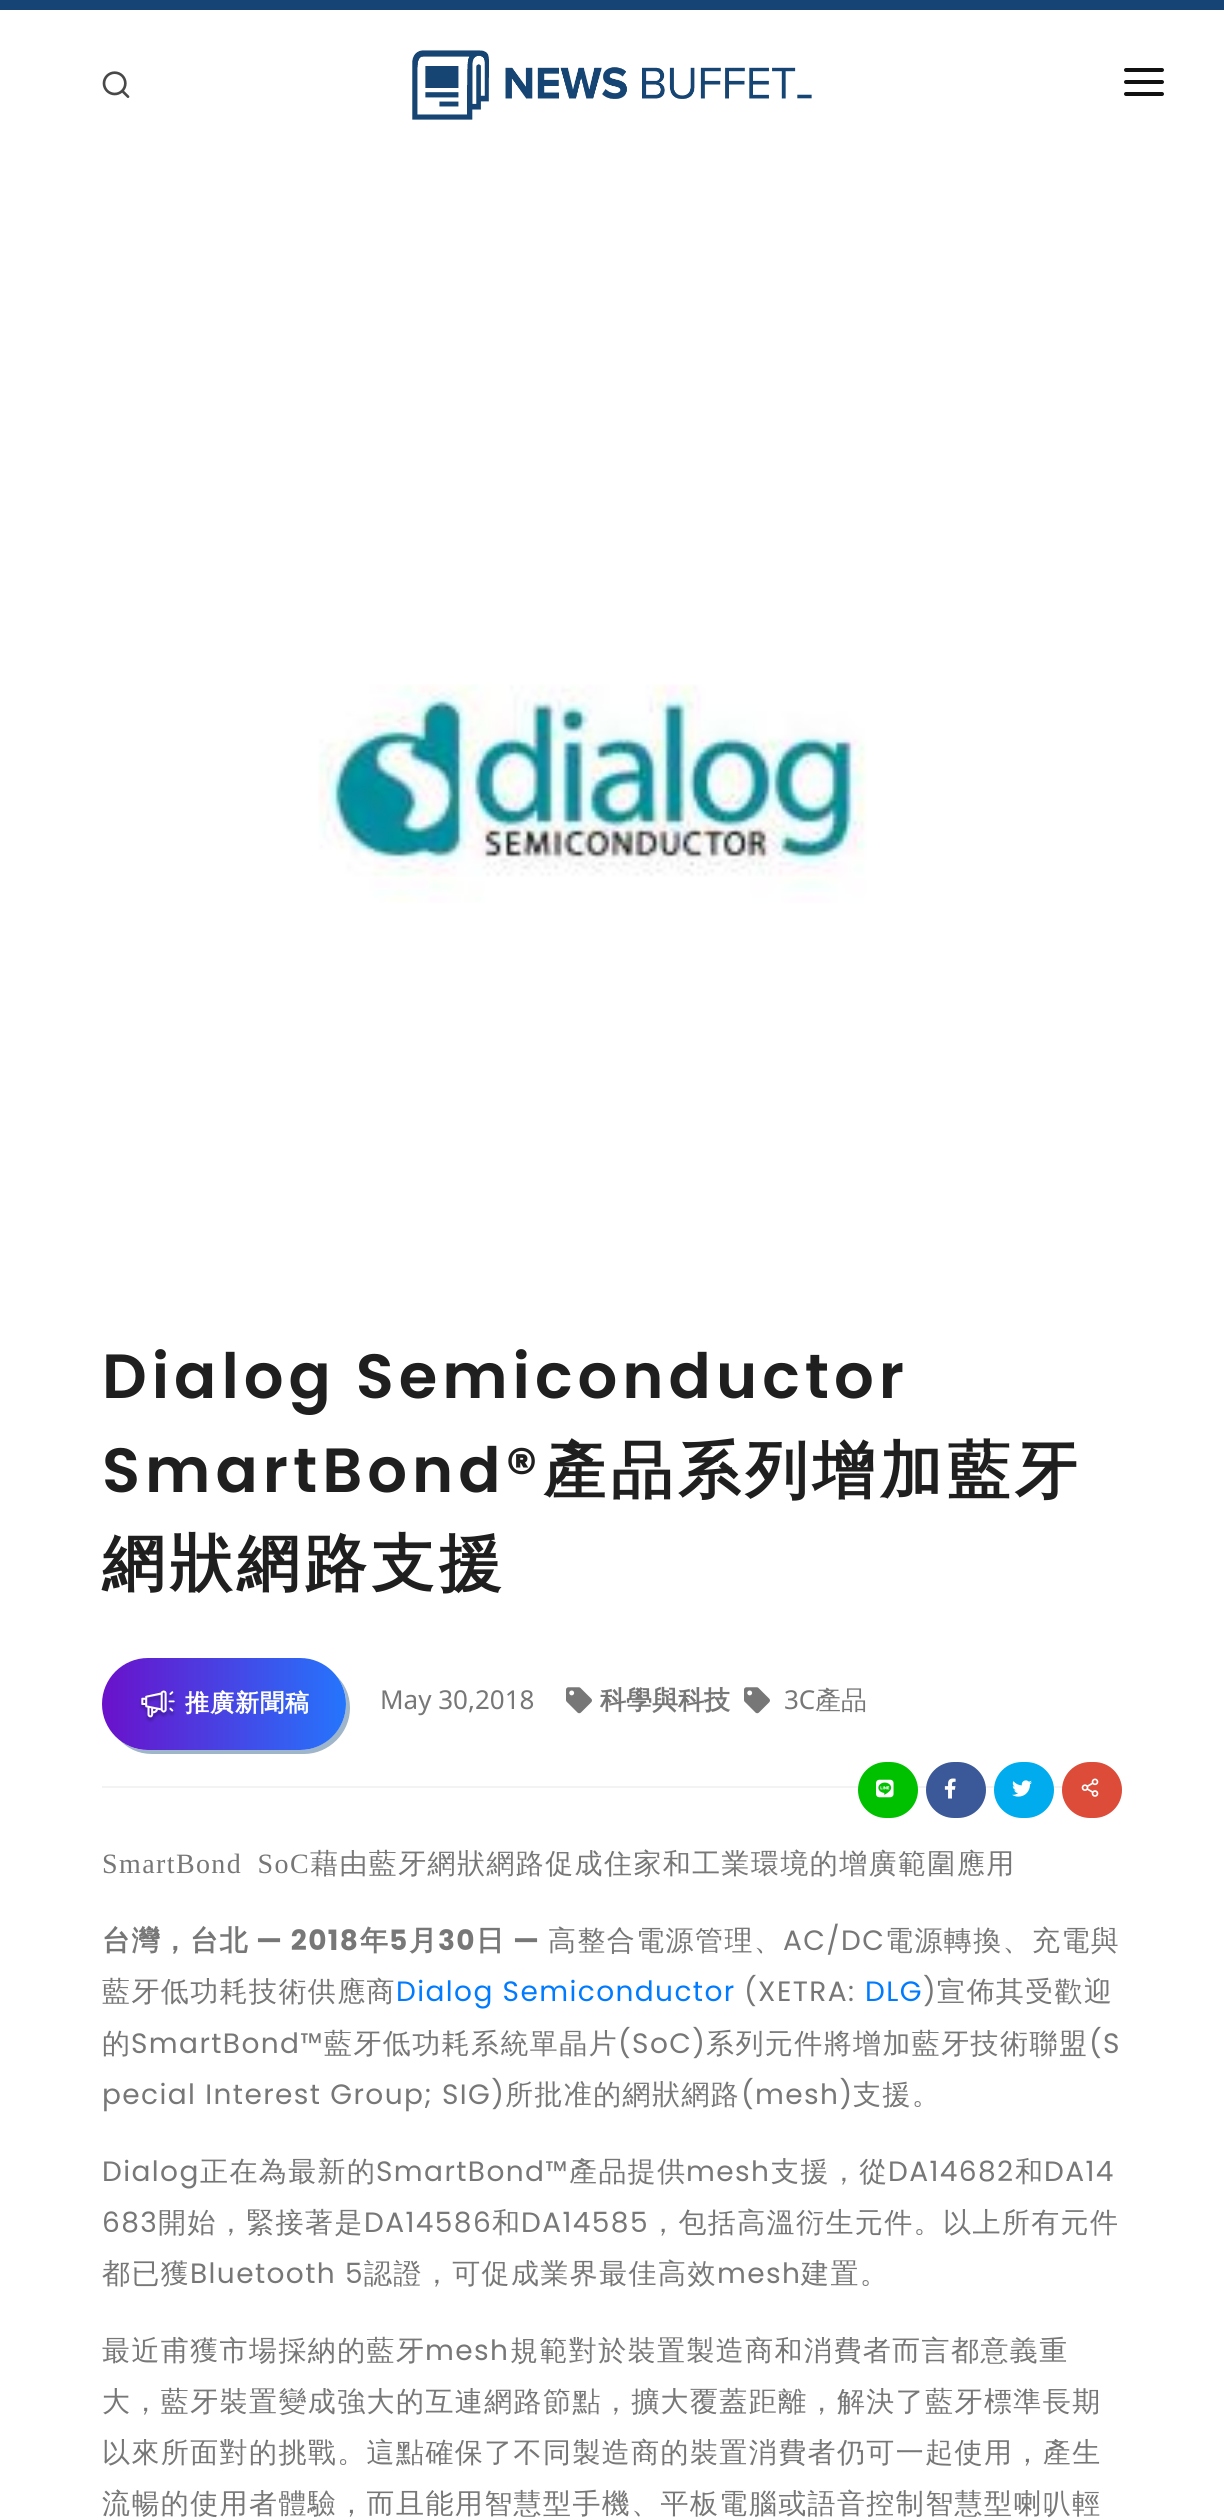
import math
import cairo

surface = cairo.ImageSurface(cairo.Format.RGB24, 1224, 2520)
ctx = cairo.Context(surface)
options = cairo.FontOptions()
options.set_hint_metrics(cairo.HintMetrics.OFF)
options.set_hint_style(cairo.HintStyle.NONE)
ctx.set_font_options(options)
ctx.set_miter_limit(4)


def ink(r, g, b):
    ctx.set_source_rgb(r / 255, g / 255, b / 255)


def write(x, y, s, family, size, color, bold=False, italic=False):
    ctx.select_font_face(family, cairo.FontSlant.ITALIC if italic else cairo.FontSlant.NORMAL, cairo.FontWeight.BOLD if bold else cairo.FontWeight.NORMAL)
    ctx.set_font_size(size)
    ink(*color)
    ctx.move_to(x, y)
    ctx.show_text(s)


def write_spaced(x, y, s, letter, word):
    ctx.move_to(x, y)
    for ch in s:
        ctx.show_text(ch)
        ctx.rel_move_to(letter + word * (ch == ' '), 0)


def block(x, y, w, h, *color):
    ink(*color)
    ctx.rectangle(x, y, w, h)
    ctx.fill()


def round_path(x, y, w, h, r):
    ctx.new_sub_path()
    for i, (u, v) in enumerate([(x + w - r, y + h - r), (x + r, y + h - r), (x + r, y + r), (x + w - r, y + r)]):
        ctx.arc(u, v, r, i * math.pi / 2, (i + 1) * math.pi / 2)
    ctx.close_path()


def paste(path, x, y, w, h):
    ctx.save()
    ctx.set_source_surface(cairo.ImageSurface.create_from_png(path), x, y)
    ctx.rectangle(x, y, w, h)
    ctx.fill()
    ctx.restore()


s1 = dict(family="Noto Sans", size=26, color=(119, 119, 119))
s2 = dict(family="WenQuanYi Zen Hei", size=26, color=(119, 119, 119), bold=True)
s3 = dict(family="WenQuanYi Zen Hei Medium", size=26, color=(119, 119, 119))

ink(255, 255, 255)
ctx.paint()
block(0, 0, 1224, 10, 22, 68, 116)
paste("pic1.png", 102, 71, 28, 27)
paste("pic2.png", 412, 50, 400, 70)
ink(17, 17, 17)
round_path(1124, 80, 40, 4, 2)
ctx.fill()
round_path(1124, 68, 40, 4, 2)
ctx.fill()
round_path(1124, 92, 40, 4, 2)
ctx.fill()
paste("pic3.png", 318, 684, 549, 219)
ctx.select_font_face("Poppins SemiBold")
ctx.set_font_size(62.4)
ink(31, 31, 31)
write_spaced(102, 1398, "Dialog Semiconductor", 5, 0)
write_spaced(102, 1492, "SmartBond®", 5, 0)
ctx.select_font_face("WenQuanYi Zen Hei", cairo.FontSlant.NORMAL, cairo.FontWeight.BOLD)
write_spaced(543, 1492, "產品系列增加藍牙", 5, 0)
write_spaced(102, 1585, "網狀網路支援", 5, 0)
block(102, 1786, 1020, 2, 243, 243, 243)
ink(159, 181, 201)
ctx.new_path()
ctx.move_to(118, 1738)
ctx.curve_to(126, 1748, 138, 1754, 152, 1754)
ctx.line_to(304, 1754)
ctx.curve_to(329, 1754, 350, 1733, 350, 1708)
ctx.curve_to(350, 1694, 344, 1682, 334, 1674)
ctx.curve_to(342, 1682, 346, 1692, 346, 1704)
ctx.curve_to(346, 1729, 325, 1750, 300, 1750)
ctx.line_to(148, 1750)
ctx.curve_to(136, 1750, 126, 1746, 118, 1738)
ctx.close_path()
ctx.fill()
gradient = cairo.LinearGradient(102, 1704, 346, 1704)
gradient.add_color_stop_rgba(0, 0.416, 0.067, 0.796, 1)
gradient.add_color_stop_rgba(1, 0.145, 0.459, 0.988, 1)
ctx.set_source(gradient)
round_path(102, 1658, 244, 92, 46)
ctx.fill()
paste("pic4.png", 139, 1690, 38, 33)
ctx.set_font_size(24)
ink(255, 255, 255)
write_spaced(185, 1711, "推廣新聞稿", 1, 0)
write(380, 1709, "May 30,2018", **s1)
paste("pic5.png", 566, 1687, 26, 27)
write(600, 1709, "科學與科技", **s2)
paste("pic5.png", 744, 1687, 26, 27)
write(784, 1709, "3C", **s1)
write(815, 1709, "產品", **s3)
ink(0, 193, 0)
round_path(858, 1762, 60, 56, 28)
ctx.fill()
paste("pic6.png", 876, 1779, 18, 19)
ink(59, 89, 152)
round_path(926, 1762, 60, 56, 28)
ctx.fill()
paste("pic7.png", 944, 1778, 12, 21)
ink(0, 172, 237)
round_path(994, 1762, 60, 56, 28)
ctx.fill()
paste("pic8.png", 1012, 1780, 20, 17)
ink(221, 75, 57)
round_path(1062, 1762, 60, 56, 28)
ctx.fill()
paste("pic9.png", 1081, 1778, 18, 19)
ctx.select_font_face("Liberation Serif")
ctx.set_font_size(28)
ink(119, 119, 119)
write_spaced(102, 1873, "SmartBond SoC", 1.4, 7)
ctx.select_font_face("WenQuanYi Zen Hei Medium")
write_spaced(310, 1873, "藉由藍牙網狀網路促成住家和工業環境的增廣範圍應用", 1.4, 0)
ctx.select_font_face("WenQuanYi Zen Hei", cairo.FontSlant.NORMAL, cairo.FontWeight.BOLD)
write_spaced(102, 1950, "台灣，台北", 1.4, 0)
ctx.select_font_face("Poppins", cairo.FontSlant.NORMAL, cairo.FontWeight.BOLD)
write_spaced(256, 1950, "— 2018", 1.4, 0)
ctx.select_font_face("WenQuanYi Zen Hei", cairo.FontSlant.NORMAL, cairo.FontWeight.BOLD)
write_spaced(360, 1950, "年", 1.4, 0)
ctx.select_font_face("Poppins", cairo.FontSlant.NORMAL, cairo.FontWeight.BOLD)
write_spaced(389, 1950, "5", 1.4, 0)
ctx.select_font_face("WenQuanYi Zen Hei", cairo.FontSlant.NORMAL, cairo.FontWeight.BOLD)
write_spaced(409, 1950, "月", 1.4, 0)
ctx.select_font_face("Poppins", cairo.FontSlant.NORMAL, cairo.FontWeight.BOLD)
write_spaced(438, 1950, "30", 1.4, 0)
ctx.select_font_face("WenQuanYi Zen Hei", cairo.FontSlant.NORMAL, cairo.FontWeight.BOLD)
write_spaced(476, 1950, "日", 1.4, 0)
ctx.select_font_face("Poppins", cairo.FontSlant.NORMAL, cairo.FontWeight.BOLD)
write_spaced(513, 1950, "—", 1.4, 0)
ctx.select_font_face("WenQuanYi Zen Hei Medium")
write_spaced(548, 1950, "高整合電源管理、", 1.4, 0)
ctx.select_font_face("Poppins")
write_spaced(783, 1950, "AC/DC", 1.4, 0)
ctx.select_font_face("WenQuanYi Zen Hei Medium")
write_spaced(885, 1950, "電源轉換、充電與", 1.4, 0)
write_spaced(102, 2001, "藍牙低功耗技術供應商", 1.4, 0)
ctx.select_font_face("Poppins")
ink(0, 123, 255)
write_spaced(396, 2001, "Dialog Semiconductor", 1.4, 0)
ink(119, 119, 119)
write_spaced(744, 2001, "(XETRA:", 1.4, 0)
ink(0, 123, 255)
write_spaced(865, 2001, "DLG", 1.4, 0)
ink(119, 119, 119)
write_spaced(923, 2001, ")", 1.4, 0)
ctx.select_font_face("WenQuanYi Zen Hei Medium")
write_spaced(937, 2001, "宣佈其受歡迎", 1.4, 0)
write_spaced(102, 2053, "的", 1.4, 0)
ctx.select_font_face("Poppins")
write_spaced(131, 2053, "SmartBond™", 1.4, 0)
ctx.select_font_face("WenQuanYi Zen Hei Medium")
write_spaced(324, 2053, "藍牙低功耗系統單晶片", 1.4, 0)
ctx.select_font_face("Poppins")
write_spaced(618, 2053, "(SoC)", 1.4, 0)
ctx.select_font_face("WenQuanYi Zen Hei Medium")
write_spaced(706, 2053, "系列元件將增加藍牙技術聯盟", 1.4, 0)
ctx.select_font_face("Poppins")
write_spaced(1089, 2053, "(S", 1.4, 0)
write_spaced(102, 2104, "pecial Interest Group; SIG)", 1.4, 0)
ctx.select_font_face("WenQuanYi Zen Hei Medium")
write_spaced(505, 2104, "所批准的網狀網路", 1.4, 0)
ctx.select_font_face("Poppins")
write_spaced(741, 2104, "(mesh)", 1.4, 0)
ctx.select_font_face("WenQuanYi Zen Hei Medium")
write_spaced(853, 2104, "支援。", 1.4, 0)
ctx.select_font_face("Poppins")
write_spaced(102, 2181, "Dialog", 1.4, 0)
ctx.select_font_face("WenQuanYi Zen Hei Medium")
write_spaced(200, 2181, "正在為最新的", 1.4, 0)
ctx.select_font_face("Poppins")
write_spaced(376, 2181, "SmartBond™", 1.4, 0)
ctx.select_font_face("WenQuanYi Zen Hei Medium")
write_spaced(569, 2181, "產品提供", 1.4, 0)
ctx.select_font_face("Poppins")
write_spaced(686, 2181, "mesh", 1.4, 0)
ctx.select_font_face("WenQuanYi Zen Hei Medium")
write_spaced(771, 2181, "支援，從", 1.4, 0)
ctx.select_font_face("Poppins")
write_spaced(888, 2181, "DA14682", 1.4, 0)
ctx.select_font_face("WenQuanYi Zen Hei Medium")
write_spaced(1015, 2181, "和", 1.4, 0)
ctx.select_font_face("Poppins")
write_spaced(1044, 2181, "DA14", 1.4, 0)
write_spaced(102, 2232, "683", 1.4, 0)
ctx.select_font_face("WenQuanYi Zen Hei Medium")
write_spaced(158, 2232, "開始，緊接著是", 1.4, 0)
ctx.select_font_face("Poppins")
write_spaced(364, 2232, "DA14586", 1.4, 0)
ctx.select_font_face("WenQuanYi Zen Hei Medium")
write_spaced(492, 2232, "和", 1.4, 0)
ctx.select_font_face("Poppins")
write_spaced(521, 2232, "DA14585", 1.4, 0)
ctx.select_font_face("WenQuanYi Zen Hei Medium")
write_spaced(649, 2232, "，包括高溫衍生元件。以上所有元件", 1.4, 0)
write_spaced(102, 2283, "都已獲", 1.4, 0)
ctx.select_font_face("Poppins")
write_spaced(190, 2283, "Bluetooth 5", 1.4, 0)
ctx.select_font_face("WenQuanYi Zen Hei Medium")
write_spaced(364, 2283, "認證，可促成業界最佳高效", 1.4, 0)
ctx.select_font_face("Poppins")
write_spaced(717, 2283, "mesh", 1.4, 0)
ctx.select_font_face("WenQuanYi Zen Hei Medium")
write_spaced(801, 2283, "建置。", 1.4, 0)
write_spaced(102, 2360, "最近甫獲市場採納的藍牙", 1.4, 0)
ctx.select_font_face("Poppins")
write_spaced(425, 2360, "mesh", 1.4, 0)
ctx.select_font_face("WenQuanYi Zen Hei Medium")
write_spaced(510, 2360, "規範對於裝置製造商和消費者而言都意義重", 1.4, 0)
write_spaced(102, 2411, "大，藍牙裝置變成強大的互連網路節點，擴大覆蓋距離，解決了藍牙標準長期", 1.4, 0)
write_spaced(102, 2462, "以來所面對的挑戰。這點確保了不同製造商的裝置消費者仍可一起使用，產生", 1.4, 0)
write_spaced(102, 2513, "流暢的使用者體驗，而且能用智慧型手機、平板電腦或語音控制智慧型喇叭輕", 1.4, 0)
surface.write_to_png("screenshot.png")
